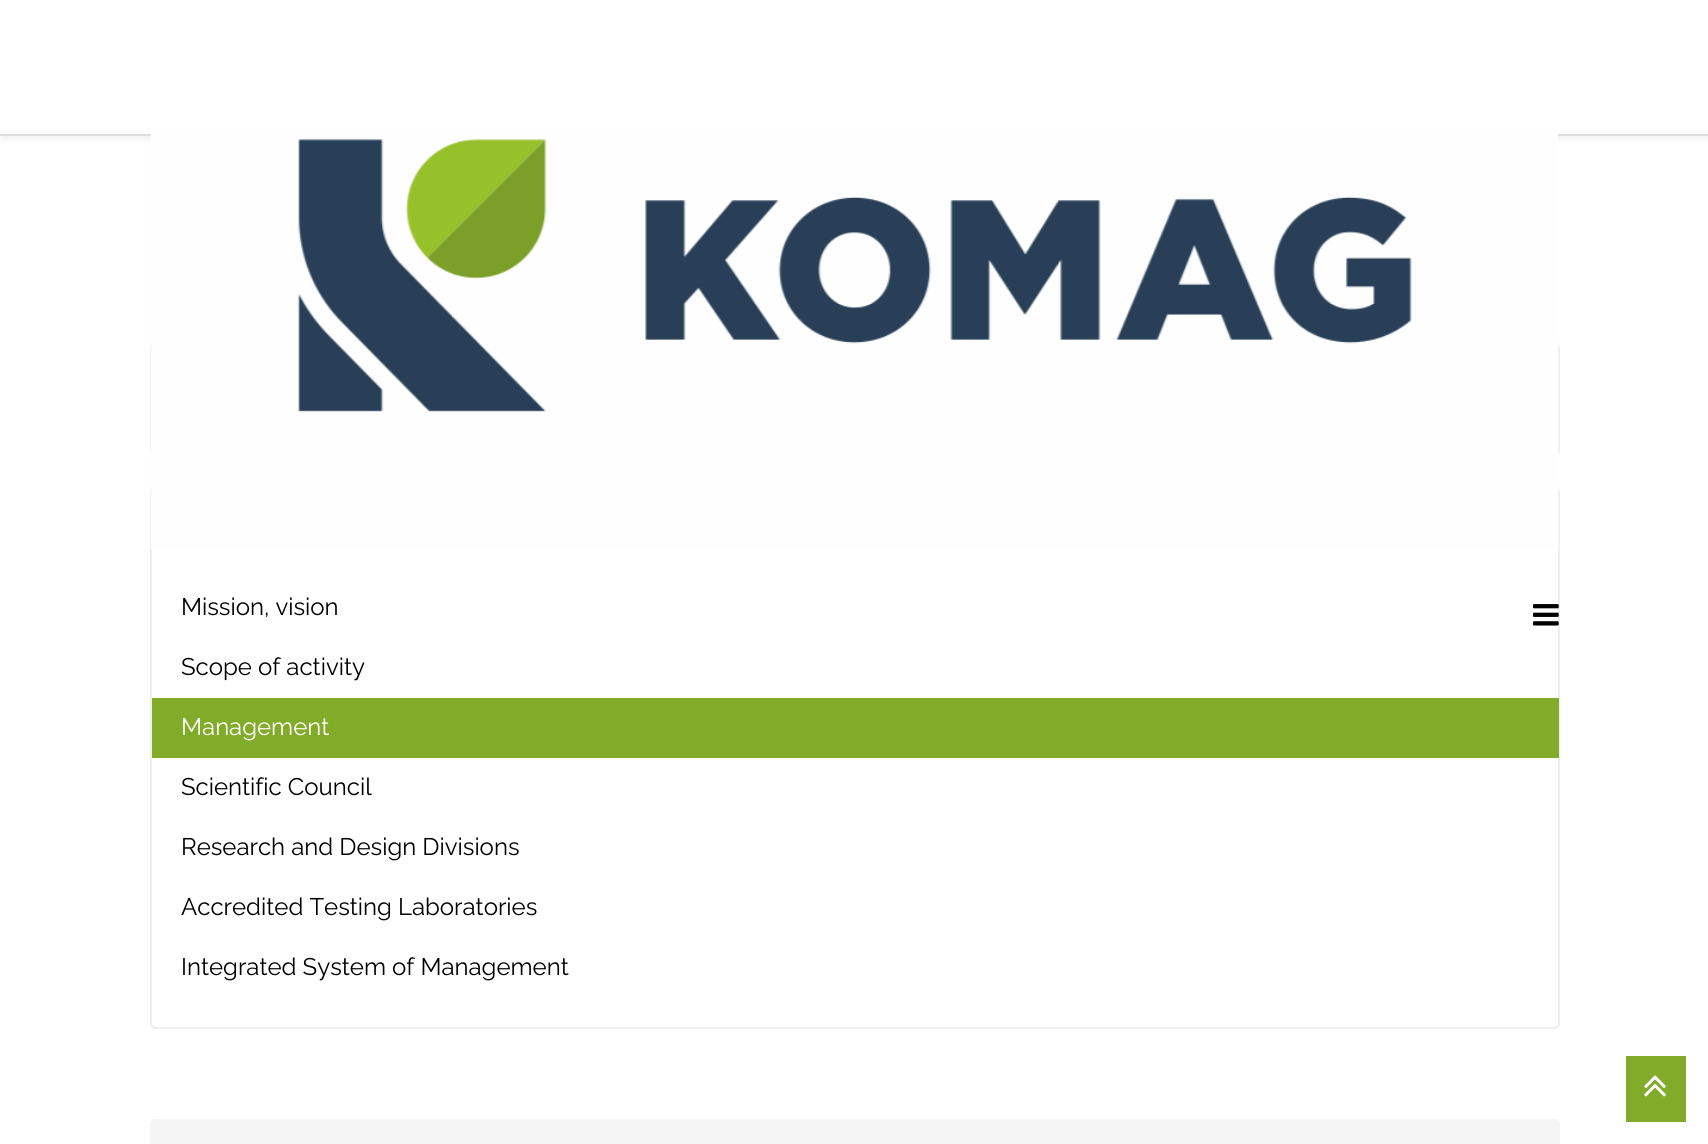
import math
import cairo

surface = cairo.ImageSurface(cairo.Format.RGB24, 1708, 1144)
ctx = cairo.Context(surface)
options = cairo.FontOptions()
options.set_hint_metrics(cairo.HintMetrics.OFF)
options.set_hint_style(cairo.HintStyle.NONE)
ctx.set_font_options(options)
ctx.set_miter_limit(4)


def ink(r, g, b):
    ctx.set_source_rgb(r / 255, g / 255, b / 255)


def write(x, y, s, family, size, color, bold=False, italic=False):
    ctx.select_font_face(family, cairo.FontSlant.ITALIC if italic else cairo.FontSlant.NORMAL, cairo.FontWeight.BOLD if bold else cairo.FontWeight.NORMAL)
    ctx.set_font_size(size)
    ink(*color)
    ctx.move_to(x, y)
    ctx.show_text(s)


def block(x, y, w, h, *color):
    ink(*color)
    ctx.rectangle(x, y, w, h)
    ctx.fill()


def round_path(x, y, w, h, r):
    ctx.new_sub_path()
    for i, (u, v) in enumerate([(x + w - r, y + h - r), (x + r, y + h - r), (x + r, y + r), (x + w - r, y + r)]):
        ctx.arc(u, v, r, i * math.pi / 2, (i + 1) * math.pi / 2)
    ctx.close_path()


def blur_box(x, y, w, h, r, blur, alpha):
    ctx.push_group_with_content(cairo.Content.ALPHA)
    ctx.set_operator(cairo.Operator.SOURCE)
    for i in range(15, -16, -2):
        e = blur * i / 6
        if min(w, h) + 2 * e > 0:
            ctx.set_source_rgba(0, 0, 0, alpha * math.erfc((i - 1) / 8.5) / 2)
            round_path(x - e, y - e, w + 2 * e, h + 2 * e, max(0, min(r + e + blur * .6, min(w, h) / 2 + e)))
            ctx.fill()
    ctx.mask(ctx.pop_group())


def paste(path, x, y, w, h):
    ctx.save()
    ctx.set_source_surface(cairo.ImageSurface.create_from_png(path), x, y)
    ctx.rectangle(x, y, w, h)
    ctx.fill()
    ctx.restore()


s1 = dict(family="Raleway", size=24, color=(0, 0, 0))
s2 = dict(family="Raleway", size=24, color=(255, 255, 255))

ink(255, 255, 255)
ctx.paint()
ink(0, 0, 0)
blur_box(0, 5, 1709, 135, 0, 2, 0.05)
block(0, 3, 1708, 131, 255, 255, 255)
block(0, 134, 1708, 2, 221, 221, 221)
round_path(151, 343, 1408, 112, 5)
ink(238, 238, 238)
ctx.stroke()
round_path(151, 487, 1408, 541, 5)
ctx.stroke()
paste("pic1.png", 150, 134, 1409, 417)
paste("pic2.png", 1533, 604, 26, 22)
write(181, 615, "Mission, vision", **s1)
write(181, 675, "Scope of activity", **s1)
block(152, 698, 1407, 60, 129, 171, 40)
write(181, 735, "Management", **s2)
write(181, 795, "Scientific Council", **s1)
write(181, 855, "Research and Design Divisions", **s1)
write(181, 915, "Accredited Testing Laboratories", **s1)
write(181, 975, "Integrated System of Management", **s1)
ink(245, 245, 245)
round_path(150, 1119, 1410, 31, 6)
ctx.fill()
block(1626, 1056, 60, 66, 129, 171, 40)
paste("pic3.png", 1644, 1075, 22, 22)
surface.write_to_png("screenshot.png")
